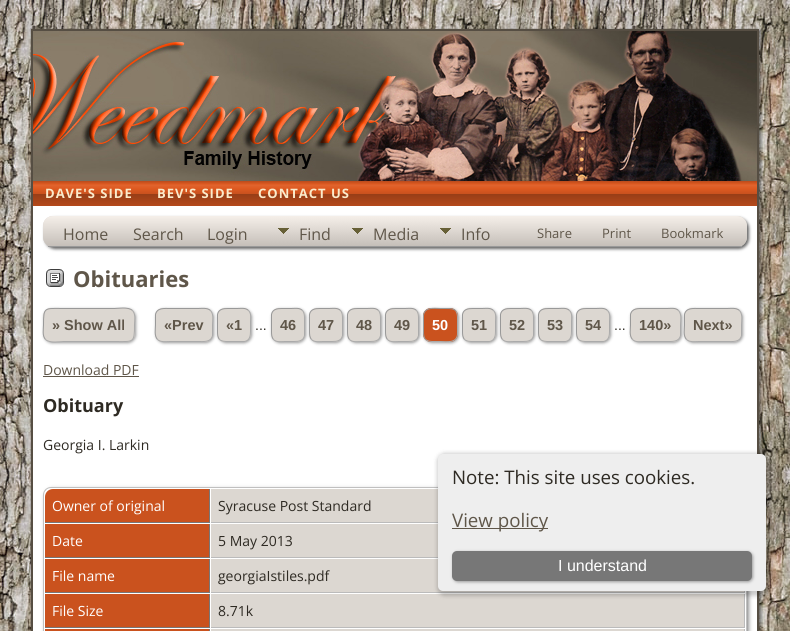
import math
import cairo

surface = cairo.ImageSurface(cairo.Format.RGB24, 790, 631)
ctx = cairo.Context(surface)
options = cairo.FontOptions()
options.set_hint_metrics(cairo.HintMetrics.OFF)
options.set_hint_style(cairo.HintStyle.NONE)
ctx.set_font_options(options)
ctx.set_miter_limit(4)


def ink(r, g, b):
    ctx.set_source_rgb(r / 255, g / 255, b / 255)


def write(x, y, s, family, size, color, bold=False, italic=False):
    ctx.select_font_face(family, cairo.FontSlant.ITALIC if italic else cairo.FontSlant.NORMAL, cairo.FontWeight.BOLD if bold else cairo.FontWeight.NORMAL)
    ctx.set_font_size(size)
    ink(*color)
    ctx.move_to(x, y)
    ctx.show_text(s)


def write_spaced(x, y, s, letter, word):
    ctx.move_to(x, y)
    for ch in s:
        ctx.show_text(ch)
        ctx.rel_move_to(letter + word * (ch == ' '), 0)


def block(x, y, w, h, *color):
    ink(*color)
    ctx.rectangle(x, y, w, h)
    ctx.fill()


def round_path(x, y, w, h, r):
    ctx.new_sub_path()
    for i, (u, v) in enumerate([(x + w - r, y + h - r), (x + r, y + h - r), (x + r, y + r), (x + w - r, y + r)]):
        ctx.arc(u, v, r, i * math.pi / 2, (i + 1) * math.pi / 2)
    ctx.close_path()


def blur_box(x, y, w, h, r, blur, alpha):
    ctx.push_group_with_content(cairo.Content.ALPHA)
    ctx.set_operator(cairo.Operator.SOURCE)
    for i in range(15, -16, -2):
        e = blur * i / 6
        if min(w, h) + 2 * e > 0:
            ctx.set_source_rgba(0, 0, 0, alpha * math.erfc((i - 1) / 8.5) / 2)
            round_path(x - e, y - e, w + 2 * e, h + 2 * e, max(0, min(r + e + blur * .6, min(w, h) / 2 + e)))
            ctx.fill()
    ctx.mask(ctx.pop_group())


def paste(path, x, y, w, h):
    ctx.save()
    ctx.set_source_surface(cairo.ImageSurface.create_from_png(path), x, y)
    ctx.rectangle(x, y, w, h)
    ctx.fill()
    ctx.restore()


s1 = dict(family="Open Sans", size=16, color=(95, 86, 73))
s2 = dict(family="Open Sans", size=13, color=(95, 86, 73))
s3 = dict(family="Open Sans", size=22, color=(95, 86, 73), bold=True)
s4 = dict(family="Liberation Sans", size=14.5, color=(95, 86, 73), bold=True)
s5 = dict(family="Liberation Sans", size=14, color=(46, 42, 35))
s6 = dict(family="Liberation Sans", size=14.5, color=(255, 255, 255), bold=True)
s7 = dict(family="Open Sans", size=14, color=(95, 86, 73))
s8 = dict(family="Open Sans", size=18, color=(46, 42, 35), bold=True)
s9 = dict(family="Open Sans", size=14, color=(46, 42, 35))
s10 = dict(family="Open Sans", size=14, color=(255, 255, 255))
s11 = dict(family="Open Sans", size=18.7, color=(46, 42, 35))
s12 = dict(family="Open Sans", size=18.7, color=(95, 86, 73))
s13 = dict(family="Liberation Sans", size=16, color=(255, 255, 255))

ink(255, 255, 255)
ctx.paint()
paste("pic1.png", 0, 0, 790, 631)
paste("pic2.png", 30, 28, 15, 15)
paste("pic3.png", 45, 28, 700, 3)
paste("pic4.png", 745, 28, 18, 15)
paste("pic5.png", 30, 43, 15, 588)
paste("pic13.png", 745, 43, 18, 588)
paste("pic6.png", 33, 31, 724, 150)
paste("pic7.png", 357, 31, 385, 150)
paste("pic8.png", 33, 181, 724, 25)
ctx.select_font_face("Open Sans", cairo.FontSlant.NORMAL, cairo.FontWeight.BOLD)
ctx.set_font_size(13)
ink(251, 235, 203)
write_spaced(45, 198, "DAVE'S SIDE", 1, 0)
write_spaced(157, 198, "BEV'S SIDE", 1, 0)
write_spaced(258, 198, "CONTACT US", 1, 0)
block(45, 206, 700, 284, 255, 255, 255)
ink(102, 102, 102)
blur_box(45, 218, 704, 31, 10, 1.5, 1)
ink(220, 215, 209)
round_path(43, 216, 704, 31, 10)
ctx.fill()
ctx.save()
round_path(43, 216, 704, 31, 10)
ctx.clip()
gradient = cairo.LinearGradient(395, 216, 395, 246)
gradient.add_color_stop_rgba(0, 0.961, 0.937, 0.914, 1)
gradient.add_color_stop_rgba(1, 0.773, 0.749, 0.725, 1)
ctx.set_source(gradient)
ctx.new_path()
ctx.move_to(53, 216)
ctx.line_to(737, 216)
ctx.curve_to(742.5, 216, 747, 220.5, 747, 226)
ctx.line_to(747, 246)
ctx.line_to(43, 246)
ctx.line_to(43, 226)
ctx.curve_to(43, 220.5, 47.5, 216, 53, 216)
ctx.close_path()
ctx.fill()
ctx.restore()
block(48, 246, 694, 1, 153, 153, 153)
write(63, 240, "Home", **s1)
write(133, 240, "Search", **s1)
write(207, 240, "Login", **s1)
paste("pic9.png", 269, 216, 74, 30)
write(299, 240, "Find", **s1)
paste("pic10.png", 343, 216, 88, 30)
write(373, 240, "Media", **s1)
paste("pic11.png", 431, 216, 71, 30)
write(461, 240, "Info", **s1)
write(537, 238, "Share", **s2)
write(602, 238, "Print", **s2)
write(661, 238, "Bookmark", **s2)
paste("pic12.png", 46, 269, 18, 18)
write(73, 287, "Obituaries", **s3)
ink(153, 153, 153)
blur_box(44, 309, 92, 34, 8, 1.5, 1)
ink(220, 215, 209)
round_path(43, 308, 92, 34, 8)
ctx.fill()
ctx.new_path()
ctx.move_to(132.5, 310.5)
ctx.curve_to(136, 314.5, 134.5, 320.5, 134.5, 325)
ctx.curve_to(134.5, 343.5, 133.5, 341.5, 114.5, 341.5)
ctx.line_to(63.5, 341.5)
ctx.curve_to(60, 341.5, 50, 343.5, 45.5, 339.5)
ink(170, 170, 170)
ctx.set_line_width(1)
ctx.stroke()
ctx.new_path()
ctx.move_to(45.5, 339.5)
ctx.curve_to(42, 335.5, 43.5, 329.5, 43.5, 325)
ctx.curve_to(43.5, 306.5, 44.5, 308.5, 63.5, 308.5)
ctx.line_to(114.5, 308.5)
ctx.curve_to(118, 308.5, 128, 306.5, 132.5, 310.5)
ink(153, 153, 153)
ctx.stroke()
write(52, 330, "» Show All", **s4)
ink(153, 153, 153)
blur_box(156, 309, 58, 34, 8, 1.5, 1)
ink(220, 215, 209)
round_path(155, 308, 58, 34, 8)
ctx.fill()
ctx.new_path()
ctx.move_to(210.5, 310.5)
ctx.curve_to(214, 314.5, 212.5, 320.5, 212.5, 325)
ctx.line_to(212.5, 335.5)
ctx.curve_to(211, 342.5, 203.5, 341.5, 198, 341.5)
ctx.line_to(170, 341.5)
ctx.curve_to(166, 341.5, 161, 342.5, 157.5, 339.5)
ink(170, 170, 170)
ctx.stroke()
ctx.new_path()
ctx.move_to(157.5, 339.5)
ctx.curve_to(154, 335.5, 155.5, 329.5, 155.5, 325)
ctx.line_to(155.5, 314.5)
ctx.curve_to(157, 307.5, 164.5, 308.5, 170, 308.5)
ctx.line_to(198, 308.5)
ctx.curve_to(202, 308.5, 207, 307.5, 210.5, 310.5)
ink(153, 153, 153)
ctx.stroke()
write(164, 330, "«Prev", **s4)
ink(153, 153, 153)
blur_box(218, 309, 34, 34, 8, 1.5, 1)
ink(220, 215, 209)
round_path(217, 308, 34, 34, 8)
ctx.fill()
ctx.new_path()
ctx.move_to(248.5, 310.5)
ctx.curve_to(251.5, 313.5, 250.5, 318, 250.5, 322)
ctx.line_to(250.5, 331)
ctx.curve_to(250.5, 335.5, 250, 340.5, 244.5, 341.5)
ctx.line_to(228, 341.5)
ctx.curve_to(225, 341.5, 222, 341.5, 219.5, 339.5)
ink(170, 170, 170)
ctx.stroke()
ctx.new_path()
ctx.move_to(219.5, 339.5)
ctx.curve_to(217.5, 337, 217.5, 334, 217.5, 331)
ctx.line_to(217.5, 314.5)
ctx.curve_to(218.5, 309, 223.5, 308.5, 228, 308.5)
ctx.line_to(237, 308.5)
ctx.curve_to(241, 308.5, 245.5, 307.5, 248.5, 310.5)
ink(153, 153, 153)
ctx.stroke()
write(226, 330, "«1", **s4)
write(255, 330, "...", **s5)
ink(153, 153, 153)
blur_box(272, 309, 34, 34, 8, 1.5, 1)
ink(220, 215, 209)
round_path(271, 308, 34, 34, 8)
ctx.fill()
ctx.new_path()
ctx.move_to(302.5, 310.5)
ctx.curve_to(304.5, 313, 304.5, 316, 304.5, 319)
ctx.line_to(304.5, 335.5)
ctx.curve_to(303.5, 341, 298.5, 341.5, 294, 341.5)
ctx.line_to(285, 341.5)
ctx.curve_to(281, 341.5, 276.5, 342.5, 273.5, 339.5)
ink(170, 170, 170)
ctx.stroke()
ctx.new_path()
ctx.move_to(273.5, 339.5)
ctx.curve_to(271.5, 337, 271.5, 334, 271.5, 331)
ctx.line_to(271.5, 314.5)
ctx.curve_to(272.5, 309, 277.5, 308.5, 282, 308.5)
ctx.line_to(291, 308.5)
ctx.curve_to(295, 308.5, 299.5, 307.5, 302.5, 310.5)
ink(153, 153, 153)
ctx.stroke()
write(280, 330, "46", **s4)
ink(153, 153, 153)
blur_box(310, 309, 34, 34, 8, 1.5, 1)
ink(220, 215, 209)
round_path(309, 308, 34, 34, 8)
ctx.fill()
ctx.new_path()
ctx.move_to(340.5, 310.5)
ctx.curve_to(342.5, 313, 342.5, 316, 342.5, 319)
ctx.line_to(342.5, 335.5)
ctx.curve_to(341.5, 341, 336.5, 341.5, 332, 341.5)
ctx.line_to(323, 341.5)
ctx.curve_to(319, 341.5, 314.5, 342.5, 311.5, 339.5)
ink(170, 170, 170)
ctx.stroke()
ctx.new_path()
ctx.move_to(311.5, 339.5)
ctx.curve_to(309.5, 337, 309.5, 334, 309.5, 331)
ctx.line_to(309.5, 314.5)
ctx.curve_to(310.5, 309, 315.5, 308.5, 320, 308.5)
ctx.line_to(329, 308.5)
ctx.curve_to(333, 308.5, 337.5, 307.5, 340.5, 310.5)
ink(153, 153, 153)
ctx.stroke()
write(318, 330, "47", **s4)
ink(153, 153, 153)
blur_box(348, 309, 34, 34, 8, 1.5, 1)
ink(220, 215, 209)
round_path(347, 308, 34, 34, 8)
ctx.fill()
ctx.new_path()
ctx.move_to(378.5, 310.5)
ctx.curve_to(380.5, 313, 380.5, 316, 380.5, 319)
ctx.line_to(380.5, 335.5)
ctx.curve_to(379.5, 341, 374.5, 341.5, 370, 341.5)
ctx.line_to(361, 341.5)
ctx.curve_to(357, 341.5, 352.5, 342.5, 349.5, 339.5)
ink(170, 170, 170)
ctx.stroke()
ctx.new_path()
ctx.move_to(349.5, 339.5)
ctx.curve_to(347.5, 337, 347.5, 334, 347.5, 331)
ctx.line_to(347.5, 314.5)
ctx.curve_to(348.5, 309, 353.5, 308.5, 358, 308.5)
ctx.line_to(367, 308.5)
ctx.curve_to(371, 308.5, 375.5, 307.5, 378.5, 310.5)
ink(153, 153, 153)
ctx.stroke()
write(356, 330, "48", **s4)
ink(153, 153, 153)
blur_box(386, 309, 34, 34, 8, 1.5, 1)
ink(220, 215, 209)
round_path(385, 308, 34, 34, 8)
ctx.fill()
ctx.new_path()
ctx.move_to(416.5, 310.5)
ctx.curve_to(418.5, 313, 418.5, 316, 418.5, 319)
ctx.line_to(418.5, 335.5)
ctx.curve_to(417.5, 341, 412.5, 341.5, 408, 341.5)
ctx.line_to(399, 341.5)
ctx.curve_to(395, 341.5, 390.5, 342.5, 387.5, 339.5)
ink(170, 170, 170)
ctx.stroke()
ctx.new_path()
ctx.move_to(387.5, 339.5)
ctx.curve_to(385.5, 337, 385.5, 334, 385.5, 331)
ctx.line_to(385.5, 314.5)
ctx.curve_to(386.5, 309, 391.5, 308.5, 396, 308.5)
ctx.line_to(405, 308.5)
ctx.curve_to(409, 308.5, 413.5, 307.5, 416.5, 310.5)
ink(153, 153, 153)
ctx.stroke()
write(394, 330, "49", **s4)
ink(153, 153, 153)
blur_box(424, 309, 35, 34, 8, 1.5, 1)
ink(202, 82, 30)
round_path(423, 308, 35, 34, 8)
ctx.fill()
ctx.new_path()
ctx.move_to(455.5, 310.5)
ctx.curve_to(457.5, 313, 457.5, 316, 457.5, 319)
ctx.line_to(457.5, 334.5)
ctx.curve_to(456.5, 343.5, 446.5, 341.5, 440.5, 341.5)
ctx.line_to(434, 341.5)
ctx.curve_to(431, 341.5, 428, 341.5, 425.5, 339.5)
ink(170, 170, 170)
ctx.stroke()
ctx.new_path()
ctx.move_to(425.5, 339.5)
ctx.curve_to(423.5, 337, 423.5, 334, 423.5, 331)
ctx.line_to(423.5, 315.5)
ctx.curve_to(424.5, 306.5, 434.5, 308.5, 440.5, 308.5)
ctx.line_to(447, 308.5)
ctx.curve_to(450, 308.5, 453, 308.5, 455.5, 310.5)
ink(153, 153, 153)
ctx.stroke()
write(432, 330, "50", **s6)
ink(153, 153, 153)
blur_box(463, 309, 34, 34, 8, 1.5, 1)
ink(220, 215, 209)
round_path(462, 308, 34, 34, 8)
ctx.fill()
ctx.new_path()
ctx.move_to(493.5, 310.5)
ctx.curve_to(496.5, 313.5, 495.5, 318, 495.5, 322)
ctx.line_to(495.5, 331)
ctx.curve_to(495.5, 335.5, 495, 340.5, 489.5, 341.5)
ctx.line_to(473, 341.5)
ctx.curve_to(470, 341.5, 467, 341.5, 464.5, 339.5)
ink(170, 170, 170)
ctx.stroke()
ctx.new_path()
ctx.move_to(464.5, 339.5)
ctx.curve_to(462.5, 337, 462.5, 334, 462.5, 331)
ctx.line_to(462.5, 314.5)
ctx.curve_to(463.5, 309, 468.5, 308.5, 473, 308.5)
ctx.line_to(482, 308.5)
ctx.curve_to(486, 308.5, 490.5, 307.5, 493.5, 310.5)
ink(153, 153, 153)
ctx.stroke()
write(471, 330, "51", **s4)
ink(153, 153, 153)
blur_box(501, 309, 34, 34, 8, 1.5, 1)
ink(220, 215, 209)
round_path(500, 308, 34, 34, 8)
ctx.fill()
ctx.new_path()
ctx.move_to(531.5, 310.5)
ctx.curve_to(533.5, 313, 533.5, 316, 533.5, 319)
ctx.line_to(533.5, 335.5)
ctx.curve_to(532.5, 341, 527.5, 341.5, 523, 341.5)
ctx.line_to(514, 341.5)
ctx.curve_to(510, 341.5, 505.5, 342.5, 502.5, 339.5)
ink(170, 170, 170)
ctx.stroke()
ctx.new_path()
ctx.move_to(502.5, 339.5)
ctx.curve_to(500.5, 337, 500.5, 334, 500.5, 331)
ctx.line_to(500.5, 314.5)
ctx.curve_to(501.5, 309, 506.5, 308.5, 511, 308.5)
ctx.line_to(520, 308.5)
ctx.curve_to(524, 308.5, 528.5, 307.5, 531.5, 310.5)
ink(153, 153, 153)
ctx.stroke()
write(509, 330, "52", **s4)
ink(153, 153, 153)
blur_box(539, 309, 34, 34, 8, 1.5, 1)
ink(220, 215, 209)
round_path(538, 308, 34, 34, 8)
ctx.fill()
ctx.new_path()
ctx.move_to(569.5, 310.5)
ctx.curve_to(572.5, 313.5, 571.5, 318, 571.5, 322)
ctx.line_to(571.5, 331)
ctx.curve_to(571.5, 335.5, 571, 340.5, 565.5, 341.5)
ctx.line_to(549, 341.5)
ctx.curve_to(546, 341.5, 543, 341.5, 540.5, 339.5)
ink(170, 170, 170)
ctx.stroke()
ctx.new_path()
ctx.move_to(540.5, 339.5)
ctx.curve_to(538.5, 337, 538.5, 334, 538.5, 331)
ctx.line_to(538.5, 314.5)
ctx.curve_to(539.5, 309, 544.5, 308.5, 549, 308.5)
ctx.line_to(558, 308.5)
ctx.curve_to(562, 308.5, 566.5, 307.5, 569.5, 310.5)
ink(153, 153, 153)
ctx.stroke()
write(547, 330, "53", **s4)
ink(153, 153, 153)
blur_box(577, 309, 34, 34, 8, 1.5, 1)
ink(220, 215, 209)
round_path(576, 308, 34, 34, 8)
ctx.fill()
ctx.new_path()
ctx.move_to(607.5, 310.5)
ctx.curve_to(610.5, 313.5, 609.5, 318, 609.5, 322)
ctx.line_to(609.5, 331)
ctx.curve_to(609.5, 335.5, 609, 340.5, 603.5, 341.5)
ctx.line_to(587, 341.5)
ctx.curve_to(584, 341.5, 581, 341.5, 578.5, 339.5)
ink(170, 170, 170)
ctx.stroke()
ctx.new_path()
ctx.move_to(578.5, 339.5)
ctx.curve_to(576.5, 337, 576.5, 334, 576.5, 331)
ctx.line_to(576.5, 314.5)
ctx.curve_to(577.5, 309, 582.5, 308.5, 587, 308.5)
ctx.line_to(596, 308.5)
ctx.curve_to(600, 308.5, 604.5, 307.5, 607.5, 310.5)
ink(153, 153, 153)
ctx.stroke()
write(585, 330, "54", **s4)
write(614, 330, "...", **s5)
ink(153, 153, 153)
blur_box(631, 309, 51, 34, 8, 1.5, 1)
ink(220, 215, 209)
round_path(630, 308, 51, 34, 8)
ctx.fill()
ctx.new_path()
ctx.move_to(678.5, 310.5)
ctx.curve_to(682, 314.5, 680.5, 320.5, 680.5, 325)
ctx.line_to(680.5, 335.5)
ctx.curve_to(679, 342, 672.5, 341.5, 667, 341.5)
ctx.line_to(644, 341.5)
ctx.curve_to(640, 341.5, 635.5, 342.5, 632.5, 339.5)
ink(170, 170, 170)
ctx.stroke()
ctx.new_path()
ctx.move_to(632.5, 339.5)
ctx.curve_to(629, 335.5, 630.5, 329.5, 630.5, 325)
ctx.line_to(630.5, 314.5)
ctx.curve_to(632, 308, 638.5, 308.5, 644, 308.5)
ctx.line_to(667, 308.5)
ctx.curve_to(671, 308.5, 675.5, 307.5, 678.5, 310.5)
ink(153, 153, 153)
ctx.stroke()
write(639, 330, "140»", **s4)
ink(153, 153, 153)
blur_box(685, 309, 58, 34, 8, 1.5, 1)
ink(220, 215, 209)
round_path(684, 308, 58, 34, 8)
ctx.fill()
ctx.new_path()
ctx.move_to(739.5, 310.5)
ctx.curve_to(743, 314.5, 741.5, 320.5, 741.5, 325)
ctx.line_to(741.5, 335.5)
ctx.curve_to(740, 342.5, 732.5, 341.5, 727, 341.5)
ctx.line_to(699, 341.5)
ctx.curve_to(695, 341.5, 690, 342.5, 686.5, 339.5)
ink(170, 170, 170)
ctx.stroke()
ctx.new_path()
ctx.move_to(686.5, 339.5)
ctx.curve_to(683, 335.5, 684.5, 329.5, 684.5, 325)
ctx.line_to(684.5, 314.5)
ctx.curve_to(686, 307.5, 693.5, 308.5, 699, 308.5)
ctx.line_to(727, 308.5)
ctx.curve_to(731, 308.5, 736, 307.5, 739.5, 310.5)
ink(153, 153, 153)
ctx.stroke()
write(693, 330, "Next»", **s4)
write(43, 375, "Download PDF", **s7)
block(43, 376, 96, 1, 95, 86, 73)
write(43, 412, "Obituary", **s8)
write(43, 450, "Georgia I. Larkin", **s9)
ink(102, 102, 102)
blur_box(46, 490, 702, 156, 7, 2.5, 1)
ink(255, 255, 255)
round_path(43.5, 487.5, 703, 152, 7.5)
ctx.fill_preserve()
ink(192, 192, 192)
ctx.stroke()
ink(202, 82, 30)
ctx.new_path()
ctx.move_to(53, 489)
ctx.line_to(210, 489)
ctx.line_to(210, 523)
ctx.line_to(45, 523)
ctx.line_to(45, 497)
ctx.curve_to(45, 492.5, 48.5, 489, 53, 489)
ctx.close_path()
ctx.fill()
block(209, 489, 1, 34, 119, 119, 119)
block(45, 522, 165, 1, 119, 119, 119)
write(52, 511, "Owner of original", **s10)
block(211, 489, 227, 33, 220, 215, 209)
block(211, 522, 227, 1, 187, 187, 187)
write(218, 511, "Syracuse Post Standard", **s9)
block(45, 524, 164, 33, 202, 82, 30)
block(209, 524, 1, 34, 119, 119, 119)
block(45, 557, 165, 1, 119, 119, 119)
write(52, 546, "Date", **s10)
block(211, 524, 227, 33, 220, 215, 209)
block(211, 557, 227, 1, 187, 187, 187)
write(218, 546, "5 May 2013", **s9)
block(45, 559, 164, 33, 202, 82, 30)
block(209, 559, 1, 34, 119, 119, 119)
block(45, 592, 165, 1, 119, 119, 119)
write(52, 581, "File name", **s10)
block(211, 559, 533, 33, 220, 215, 209)
block(744, 591, 1, 2, 187, 187, 187)
block(211, 592, 534, 1, 187, 187, 187)
write(218, 581, "georgiaIstiles.pdf", **s9)
block(45, 594, 164, 33, 202, 82, 30)
block(209, 594, 1, 34, 119, 119, 119)
block(45, 627, 165, 1, 119, 119, 119)
write(52, 616, "File Size", **s10)
block(211, 594, 533, 33, 220, 215, 209)
block(744, 594, 1, 34, 187, 187, 187)
block(211, 627, 534, 1, 187, 187, 187)
write(218, 616, "8.71k", **s9)
block(45, 629, 165, 2, 202, 82, 30)
block(209, 629, 1, 2, 119, 119, 119)
block(211, 629, 534, 2, 220, 215, 209)
ink(187, 187, 187)
ctx.set_fill_rule(cairo.FillRule.EVEN_ODD)
ctx.new_path()
ctx.move_to(211, 629)
ctx.line_to(745, 629)
ctx.line_to(745, 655)
ctx.curve_to(745, 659, 741, 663, 737, 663)
ctx.line_to(211, 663)
ctx.close_path()
ctx.move_to(211, 629)
ctx.line_to(744, 629)
ctx.line_to(744, 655)
ctx.curve_to(744, 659, 741, 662, 737, 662)
ctx.line_to(211, 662)
ctx.close_path()
ctx.fill()
ink(0, 0, 0)
blur_box(437, 453, 334, 143, 8, 2, 0.2)
ink(238, 238, 238)
round_path(438, 454, 328, 137, 5)
ctx.fill()
write(452, 484, "Note: This site uses cookies.", **s11)
block(452, 528, 96, 1, 95, 86, 73)
write(452, 527, "View policy", **s12)
ink(153, 153, 153)
blur_box(453, 552, 300, 30, 5, 1.5, 1)
ink(119, 119, 119)
round_path(452, 551, 300, 30, 5)
ctx.fill()
write(558, 571, "I understand", **s13)
surface.write_to_png("screenshot.png")
